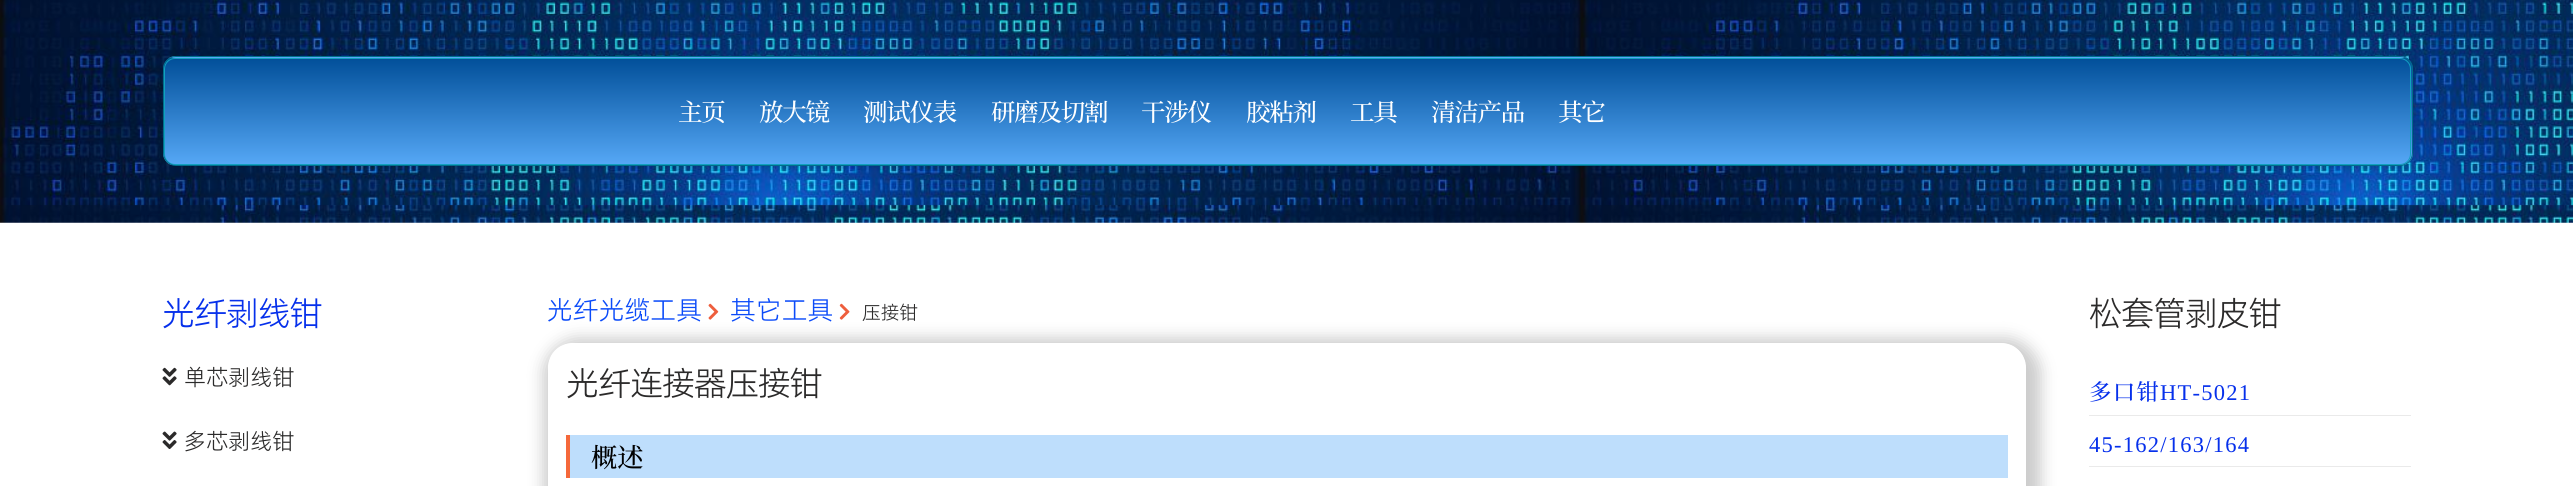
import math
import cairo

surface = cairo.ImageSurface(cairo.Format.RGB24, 2573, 486)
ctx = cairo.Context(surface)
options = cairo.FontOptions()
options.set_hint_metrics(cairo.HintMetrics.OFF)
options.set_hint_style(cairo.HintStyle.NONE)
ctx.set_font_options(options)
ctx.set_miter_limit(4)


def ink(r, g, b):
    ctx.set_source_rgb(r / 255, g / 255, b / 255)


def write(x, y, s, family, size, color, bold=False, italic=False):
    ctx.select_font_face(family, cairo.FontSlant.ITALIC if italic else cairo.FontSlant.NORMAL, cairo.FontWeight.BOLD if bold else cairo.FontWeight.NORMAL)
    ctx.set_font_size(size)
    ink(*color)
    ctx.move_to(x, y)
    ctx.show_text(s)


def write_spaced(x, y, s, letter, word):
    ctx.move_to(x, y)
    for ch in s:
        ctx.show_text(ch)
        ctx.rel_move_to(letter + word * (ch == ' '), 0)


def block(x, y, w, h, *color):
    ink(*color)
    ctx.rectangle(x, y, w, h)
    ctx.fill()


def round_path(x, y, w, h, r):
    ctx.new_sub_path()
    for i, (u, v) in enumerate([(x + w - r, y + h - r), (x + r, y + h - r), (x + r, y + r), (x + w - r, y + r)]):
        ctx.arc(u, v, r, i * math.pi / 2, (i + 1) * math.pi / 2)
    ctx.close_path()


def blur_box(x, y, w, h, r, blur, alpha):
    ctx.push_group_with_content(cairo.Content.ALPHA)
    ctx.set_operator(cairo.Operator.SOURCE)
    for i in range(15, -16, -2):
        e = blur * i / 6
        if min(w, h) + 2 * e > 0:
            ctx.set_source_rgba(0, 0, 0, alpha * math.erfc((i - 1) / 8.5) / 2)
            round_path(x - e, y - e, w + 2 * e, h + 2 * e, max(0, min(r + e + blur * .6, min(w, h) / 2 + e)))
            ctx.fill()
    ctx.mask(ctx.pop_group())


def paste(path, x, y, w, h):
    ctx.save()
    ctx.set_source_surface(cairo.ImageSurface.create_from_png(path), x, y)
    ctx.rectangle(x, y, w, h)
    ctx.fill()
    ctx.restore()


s1 = dict(family="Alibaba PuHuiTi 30 Light", size=22.5, color=(43, 42, 42))
s2 = dict(family="Alibaba PuHuiTi 30 Light", size=26.25, color=(11, 75, 249))
s3 = dict(family="Alibaba PuHuiTi 30 Light", size=19, color=(43, 42, 42))
s4 = dict(family="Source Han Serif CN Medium", size=26.25, color=(0, 0, 0))

ink(255, 255, 255)
ctx.paint()
paste("pic1.png", 0, 0, 2573, 223)
paste("pic2.png", 0, 222, 2573, 1)
ink(0, 0, 0)
blur_box(163, 58, 2250, 110, 13, 2.5, 0.1)
ctx.save()
round_path(163, 56, 2250, 110, 13)
ctx.clip()
gradient = cairo.LinearGradient(1288, -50, 1288, 58)
gradient.add_color_stop_rgba(0, 0, 0.306, 0.596, 1)
gradient.add_color_stop_rgba(1, 0.337, 0.659, 0.965, 1)
ctx.set_source(gradient)
ctx.rectangle(163, 56, 2250, 2)
ctx.fill()
gradient = cairo.LinearGradient(1288, 57, 1288, 165)
gradient.add_color_stop_rgba(0, 0, 0.306, 0.596, 1)
gradient.add_color_stop_rgba(1, 0.337, 0.659, 0.965, 1)
ctx.set_source(gradient)
ctx.rectangle(163, 58, 2250, 107)
ctx.fill()
ctx.restore()
round_path(164.5, 58.5, 2246, 106, 10.5)
ink(18, 160, 191)
ctx.set_line_width(1)
ctx.stroke()
round_path(163.5, 56.5, 2249, 109, 12.5)
ink(0, 110, 139)
ctx.stroke()
ctx.select_font_face("Source Han Serif CN Medium")
ctx.set_font_size(24.5)
ink(255, 255, 255)
write_spaced(678, 121, "主页", -1.25, 0)
write_spaced(759, 121, "放大镜", -1.25, 0)
write_spaced(863, 121, "测试仪表", -1.25, 0)
write_spaced(991, 121, "研磨及切割", -1.25, 0)
write_spaced(1141, 121, "干涉仪", -1.25, 0)
write_spaced(1246, 121, "胶粘剂", -1.25, 0)
write_spaced(1350, 121, "工具", -1.25, 0)
write_spaced(1431, 121, "清洁产品", -1.25, 0)
write_spaced(1558, 121, "其它", -1.25, 0)
ctx.select_font_face("Alibaba PuHuiTi 30 Light")
ctx.set_font_size(33.75)
ink(6, 48, 235)
write_spaced(162, 325, "光纤剥线钳", -1.25, 0)
paste("pic3.png", 162, 367, 15, 19)
write(184, 385, "单芯剥线钳", **s1)
paste("pic4.png", 162, 431, 15, 18)
write(184, 449, "多芯剥线钳", **s1)
ctx.save()
ctx.set_fill_rule(cairo.FillRule.EVEN_ODD)
ctx.new_path()
ctx.move_to(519, 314)
ctx.line_to(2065, 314)
ctx.line_to(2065, 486)
ctx.line_to(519, 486)
ctx.close_path()
ctx.move_to(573, 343)
ctx.line_to(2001, 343)
ctx.curve_to(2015, 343, 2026, 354, 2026, 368)
ctx.line_to(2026, 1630)
ctx.curve_to(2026, 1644, 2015, 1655, 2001, 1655)
ctx.line_to(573, 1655)
ctx.curve_to(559, 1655, 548, 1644, 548, 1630)
ctx.line_to(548, 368)
ctx.curve_to(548, 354, 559, 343, 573, 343)
ctx.close_path()
ctx.clip()
ink(204, 204, 204)
blur_box(543, 338, 1498, 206, 35, 7.5, 1)
ctx.restore()
write(547, 319, "光纤光缆工具", **s2)
paste("pic5.png", 708, 303, 11, 17)
write(730, 319, "其它工具", **s2)
paste("pic6.png", 839, 303, 11, 17)
write(862, 319, "压接钳", **s3)
ctx.set_font_size(33.75)
write_spaced(566, 395, "光纤连接器压接钳", -1.25, 0)
block(570, 435, 1438, 43, 190, 222, 252)
block(566, 435, 4, 43, 245, 104, 58)
write(591, 467, "概述", **s4)
ctx.select_font_face("Alibaba PuHuiTi 30 Light")
ctx.set_font_size(33.75)
ink(43, 42, 42)
write_spaced(2089, 325, "松套管剥皮钳", -1.25, 0)
block(2089, 415, 322, 1, 234, 234, 234)
ctx.select_font_face("Source Han Serif CN Medium")
ctx.set_font_size(22.5)
ink(6, 48, 235)
write_spaced(2089, 400, "多口钳", 1.25, 0)
ctx.select_font_face("Liberation Serif")
write_spaced(2160, 400, "HT-5021", 1.25, 0)
block(2089, 466, 322, 1, 234, 234, 234)
ink(6, 48, 235)
write_spaced(2089, 452, "45-162/163/164", 1.25, 0)
surface.write_to_png("screenshot.png")
